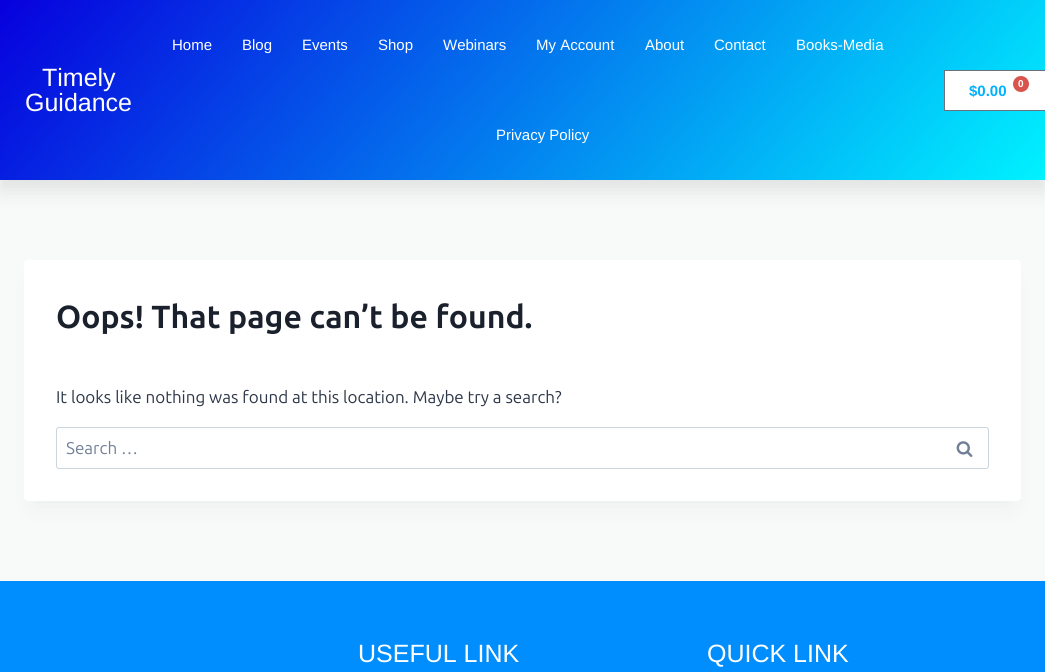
import math
import cairo

surface = cairo.ImageSurface(cairo.Format.RGB24, 1045, 672)
ctx = cairo.Context(surface)
options = cairo.FontOptions()
options.set_hint_metrics(cairo.HintMetrics.OFF)
options.set_hint_style(cairo.HintStyle.NONE)
ctx.set_font_options(options)
ctx.set_miter_limit(4)


def ink(r, g, b):
    ctx.set_source_rgb(r / 255, g / 255, b / 255)


def write(x, y, s, family, size, color, bold=False, italic=False):
    ctx.select_font_face(family, cairo.FontSlant.ITALIC if italic else cairo.FontSlant.NORMAL, cairo.FontWeight.BOLD if bold else cairo.FontWeight.NORMAL)
    ctx.set_font_size(size)
    ink(*color)
    ctx.move_to(x, y)
    ctx.show_text(s)


def block(x, y, w, h, *color):
    ink(*color)
    ctx.rectangle(x, y, w, h)
    ctx.fill()


def round_path(x, y, w, h, r):
    ctx.new_sub_path()
    for i, (u, v) in enumerate([(x + w - r, y + h - r), (x + r, y + h - r), (x + r, y + r), (x + w - r, y + r)]):
        ctx.arc(u, v, r, i * math.pi / 2, (i + 1) * math.pi / 2)
    ctx.close_path()


def blur_box(x, y, w, h, r, blur, alpha):
    ctx.push_group_with_content(cairo.Content.ALPHA)
    ctx.set_operator(cairo.Operator.SOURCE)
    for i in range(15, -16, -2):
        e = blur * i / 6
        if min(w, h) + 2 * e > 0:
            ctx.set_source_rgba(0, 0, 0, alpha * math.erfc((i - 1) / 8.5) / 2)
            round_path(x - e, y - e, w + 2 * e, h + 2 * e, max(0, min(r + e + blur * .6, min(w, h) / 2 + e)))
            ctx.fill()
    ctx.mask(ctx.pop_group())


def paste(path, x, y, w, h):
    ctx.save()
    ctx.set_source_surface(cairo.ImageSurface.create_from_png(path), x, y)
    ctx.rectangle(x, y, w, h)
    ctx.fill()
    ctx.restore()


s1 = dict(family="Liberation Sans", size=25, color=(255, 255, 255))
s2 = dict(family="Liberation Sans", size=15, color=(255, 255, 255))
s3 = dict(family="Liberation Sans", size=15, color=(0, 177, 255), bold=True)
s4 = dict(family="Liberation Sans", size=10, color=(255, 255, 255), bold=True)
s5 = dict(family="Ubuntu", size=32, color=(26, 32, 44), bold=True)
s6 = dict(family="Ubuntu", size=17, color=(45, 55, 72))
s7 = dict(family="Ubuntu", size=17, color=(113, 128, 150))

ink(248, 250, 250)
ctx.paint()
ink(0, 0, 0)
blur_box(0, 10, 1045, 180, 0, 10, 0.1)
gradient = cairo.LinearGradient(172, -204, 873, 384)
gradient.add_color_stop_rgba(0, 0.027, 0, 0.867, 1)
gradient.add_color_stop_rgba(1, 0, 0.949, 1, 1)
ctx.set_source(gradient)
ctx.rectangle(0, 0, 1045, 180)
ctx.fill()
write(42, 86, "Timely", **s1)
write(25, 111, "Guidance", **s1)
write(172, 50, "Home", **s2)
write(242, 50, "Blog", **s2)
write(302, 50, "Events", **s2)
write(378, 50, "Shop", **s2)
write(443, 50, "Webinars", **s2)
write(536, 50, "My Account", **s2)
write(645, 50, "About", **s2)
write(714, 50, "Contact", **s2)
write(796, 50, "Books-Media", **s2)
write(496, 140, "Privacy Policy", **s2)
ctx.rectangle(944.5, 70.5, 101, 40)
ctx.fill_preserve()
ink(105, 114, 125)
ctx.set_line_width(1)
ctx.stroke()
write(969, 96, "$0.00", **s3)
ink(217, 83, 79)
ctx.new_path()
ctx.arc(1021, 84, 8, 0, 2 * math.pi)
ctx.fill()
write(1018, 87, "0", **s4)
ink(0, 0, 0)
blur_box(34, 285, 977, 221, 0, 12.5, 0.05)
ink(255, 255, 255)
round_path(24, 260, 997, 241, 4)
ctx.fill()
write(56, 328, "Oops! That page can’t be found.", **s5)
write(56, 403, "It looks like nothing was found at this location. Maybe try a search?", **s6)
round_path(56.5, 427.5, 932, 41, 2.5)
ink(203, 213, 224)
ctx.stroke()
write(66, 454, "Search …", **s7)
paste("pic1.png", 956, 441, 17, 16)
block(0, 581, 1045, 91, 0, 142, 255)
write(358, 662, "USEFUL LINK", **s1)
write(707, 662, "QUICK LINK", **s1)
surface.write_to_png("screenshot.png")
